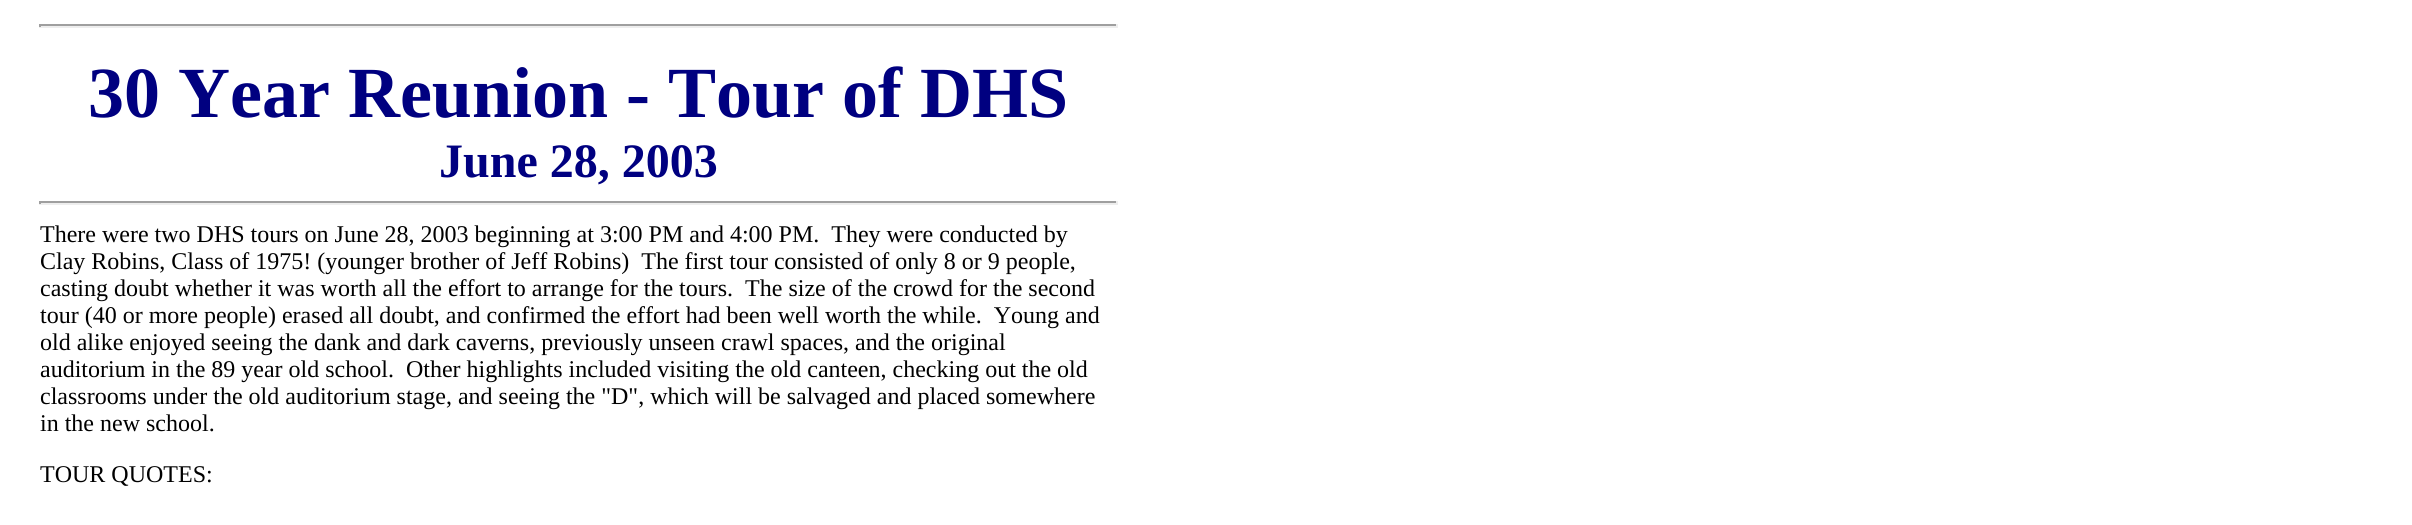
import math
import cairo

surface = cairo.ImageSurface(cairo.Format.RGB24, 2412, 525)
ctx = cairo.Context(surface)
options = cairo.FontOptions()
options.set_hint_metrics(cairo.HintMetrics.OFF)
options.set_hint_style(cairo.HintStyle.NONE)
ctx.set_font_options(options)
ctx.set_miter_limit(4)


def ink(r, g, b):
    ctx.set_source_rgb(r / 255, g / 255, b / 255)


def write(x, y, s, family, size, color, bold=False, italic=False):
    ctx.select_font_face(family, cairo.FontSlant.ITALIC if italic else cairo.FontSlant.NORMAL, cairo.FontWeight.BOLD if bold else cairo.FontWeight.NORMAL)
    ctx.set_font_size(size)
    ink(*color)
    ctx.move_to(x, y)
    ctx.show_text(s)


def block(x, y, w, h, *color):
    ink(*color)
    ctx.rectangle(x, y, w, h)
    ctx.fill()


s1 = dict(family="Liberation Serif", size=72, color=(0, 0, 128), bold=True)
s2 = dict(family="Liberation Serif", size=48, color=(0, 0, 128), bold=True)
s3 = dict(family="Liberation Serif", size=24, color=(0, 0, 0))

ink(255, 255, 255)
ctx.paint()
block(39, 24, 1079, 2, 159, 159, 159)
block(1116, 24, 2, 3, 238, 238, 238)
block(39, 26, 1079, 2, 238, 238, 238)
block(39, 24, 2, 3, 159, 159, 159)
write(88, 117, "30 Year Reunion - Tour of DHS", **s1)
write(439, 177, "June 28, 2003", **s2)
block(39, 201, 1079, 2, 159, 159, 159)
block(1116, 201, 2, 3, 238, 238, 238)
block(39, 203, 1079, 2, 238, 238, 238)
block(39, 201, 2, 3, 159, 159, 159)
write(40, 242, "There were two DHS tours on June 28, 2003 beginning at 3:00 PM and 4:00 PM.  They were conducted by", **s3)
write(40, 269, "Clay Robins, Class of 1975! (younger brother of Jeff Robins)  The first tour consisted of only 8 or 9 people,", **s3)
write(40, 296, "casting doubt whether it was worth all the effort to arrange for the tours.  The size of the crowd for the second", **s3)
write(40, 323, "tour (40 or more people) erased all doubt, and confirmed the effort had been well worth the while.  Young and", **s3)
write(40, 350, "old alike enjoyed seeing the dank and dark caverns, previously unseen crawl spaces, and the original", **s3)
write(40, 377, "auditorium in the 89 year old school.  Other highlights included visiting the old canteen, checking out the old", **s3)
write(40, 404, "classrooms under the old auditorium stage, and seeing the \"D\", which will be salvaged and placed somewhere", **s3)
write(40, 431, "in the new school.", **s3)
write(40, 482, "TOUR QUOTES:", **s3)
surface.write_to_png("screenshot.png")
